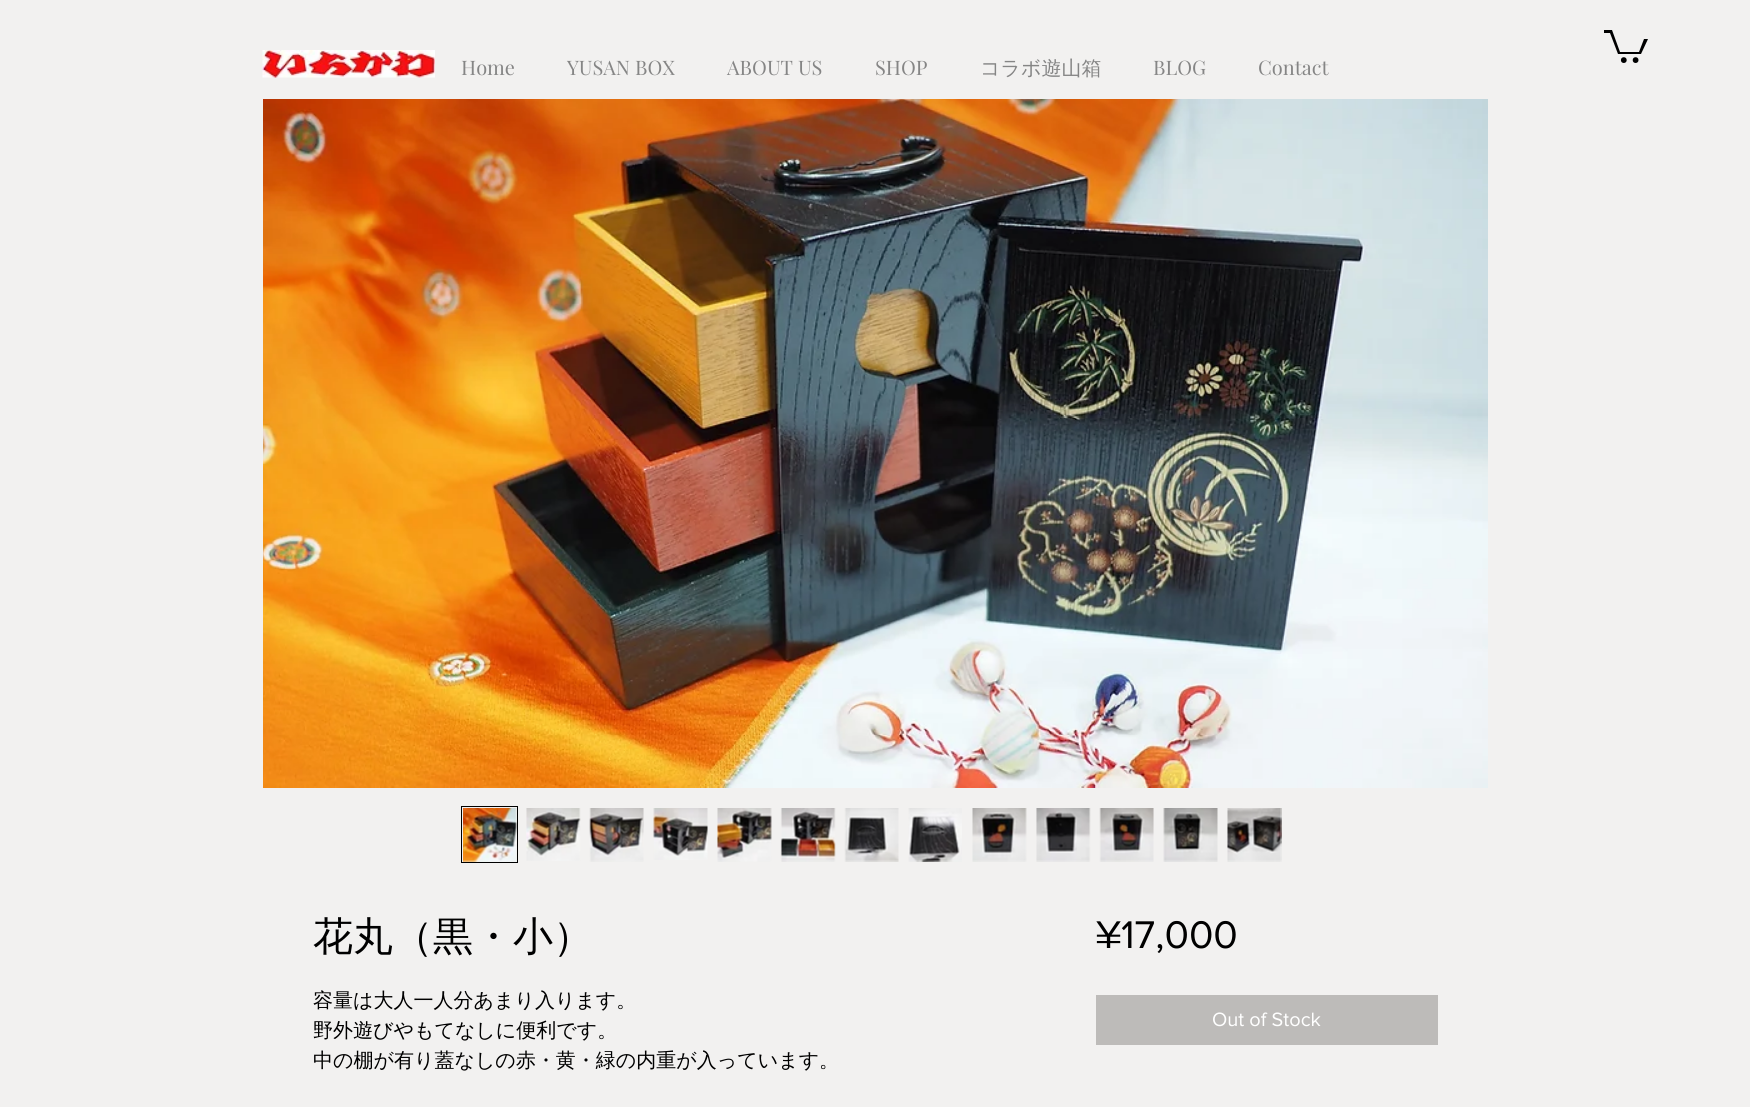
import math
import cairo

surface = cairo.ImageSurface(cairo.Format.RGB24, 1750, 1107)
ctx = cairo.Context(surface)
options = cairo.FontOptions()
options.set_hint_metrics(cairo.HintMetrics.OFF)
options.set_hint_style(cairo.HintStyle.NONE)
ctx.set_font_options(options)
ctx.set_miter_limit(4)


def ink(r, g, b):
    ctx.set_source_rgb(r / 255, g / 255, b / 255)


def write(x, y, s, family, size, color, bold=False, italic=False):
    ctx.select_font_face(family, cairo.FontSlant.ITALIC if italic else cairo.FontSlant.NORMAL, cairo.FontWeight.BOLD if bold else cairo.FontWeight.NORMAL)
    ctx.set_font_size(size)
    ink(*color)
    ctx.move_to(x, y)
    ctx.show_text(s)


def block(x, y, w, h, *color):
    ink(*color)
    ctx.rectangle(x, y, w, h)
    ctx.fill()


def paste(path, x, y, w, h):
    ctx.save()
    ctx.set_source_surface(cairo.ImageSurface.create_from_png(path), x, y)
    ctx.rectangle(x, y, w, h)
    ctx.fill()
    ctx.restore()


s1 = dict(family="Playfair Display", size=20, color=(133, 133, 133))
s2 = dict(family="WenQuanYi Zen Hei Medium", size=20, color=(133, 133, 133))
s3 = dict(family="WenQuanYi Zen Hei Medium", size=40, color=(0, 0, 0))
s4 = dict(family="WenQuanYi Zen Hei Medium", size=20, color=(0, 0, 0))
s5 = dict(family="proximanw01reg", size=40, color=(0, 0, 0))
s6 = dict(family="proximanw01reg", size=20, color=(255, 255, 255))

ink(242, 241, 240)
ctx.paint()
ink(0, 0, 0)
ctx.new_path()
ctx.move_to(1648, 39)
ctx.line_to(1641, 54)
ctx.line_to(1618, 54)
ctx.line_to(1610, 33)
ctx.line_to(1604, 33)
ctx.line_to(1604, 30)
ctx.line_to(1612, 30)
ctx.line_to(1620, 52)
ctx.line_to(1639, 52)
ctx.line_to(1644, 39)
ctx.fill()
ctx.arc(1635.6, 60.1, 2.9, 0, 2 * math.pi)
ctx.fill()
ctx.arc(1623.8, 60.1, 2.9, 0, 2 * math.pi)
ctx.fill()
paste("pic1.png", 262, 50, 173, 28)
write(461, 75, "Home", **s1)
write(567, 75, "YUSAN BOX", **s1)
write(727, 75, "ABOUT US", **s1)
write(875, 75, "SHOP", **s1)
write(980, 75, "コラボ遊山箱", **s2)
write(1153, 75, "BLOG", **s1)
write(1258, 75, "Contact", **s1)
paste("pic2.png", 263, 99, 1225, 689)
ctx.rectangle(461.5, 806.5, 56, 56)
ink(0, 0, 0)
ctx.set_line_width(1)
ctx.stroke()
paste("pic3.png", 463, 808, 54, 54)
paste("pic4.png", 526, 808, 55, 53)
paste("pic5.png", 589, 808, 55, 54)
paste("pic6.png", 653, 808, 55, 52)
paste("pic7.png", 717, 808, 55, 54)
paste("pic8.png", 780, 808, 56, 54)
paste("pic9.png", 844, 808, 55, 54)
paste("pic10.png", 908, 808, 54, 54)
paste("pic11.png", 972, 808, 55, 54)
paste("pic12.png", 1036, 808, 55, 54)
paste("pic13.png", 1099, 808, 55, 54)
paste("pic14.png", 1163, 808, 55, 54)
paste("pic15.png", 1227, 808, 55, 54)
write(313, 950, "花丸（黒・小）", **s3)
write(313, 1007, "容量は大人一人分あまり入ります。", **s4)
write(313, 1037, "野外遊びやもてなしに便利です。", **s4)
write(313, 1067, "中の棚が有り蓋なしの赤・黄・緑の内重が入っています。", **s4)
write(1096, 948, "¥17,000", **s5)
block(1096, 995, 342, 50, 189, 187, 185)
write(1212, 1026, "Out of Stock", **s6)
surface.write_to_png("screenshot.png")
